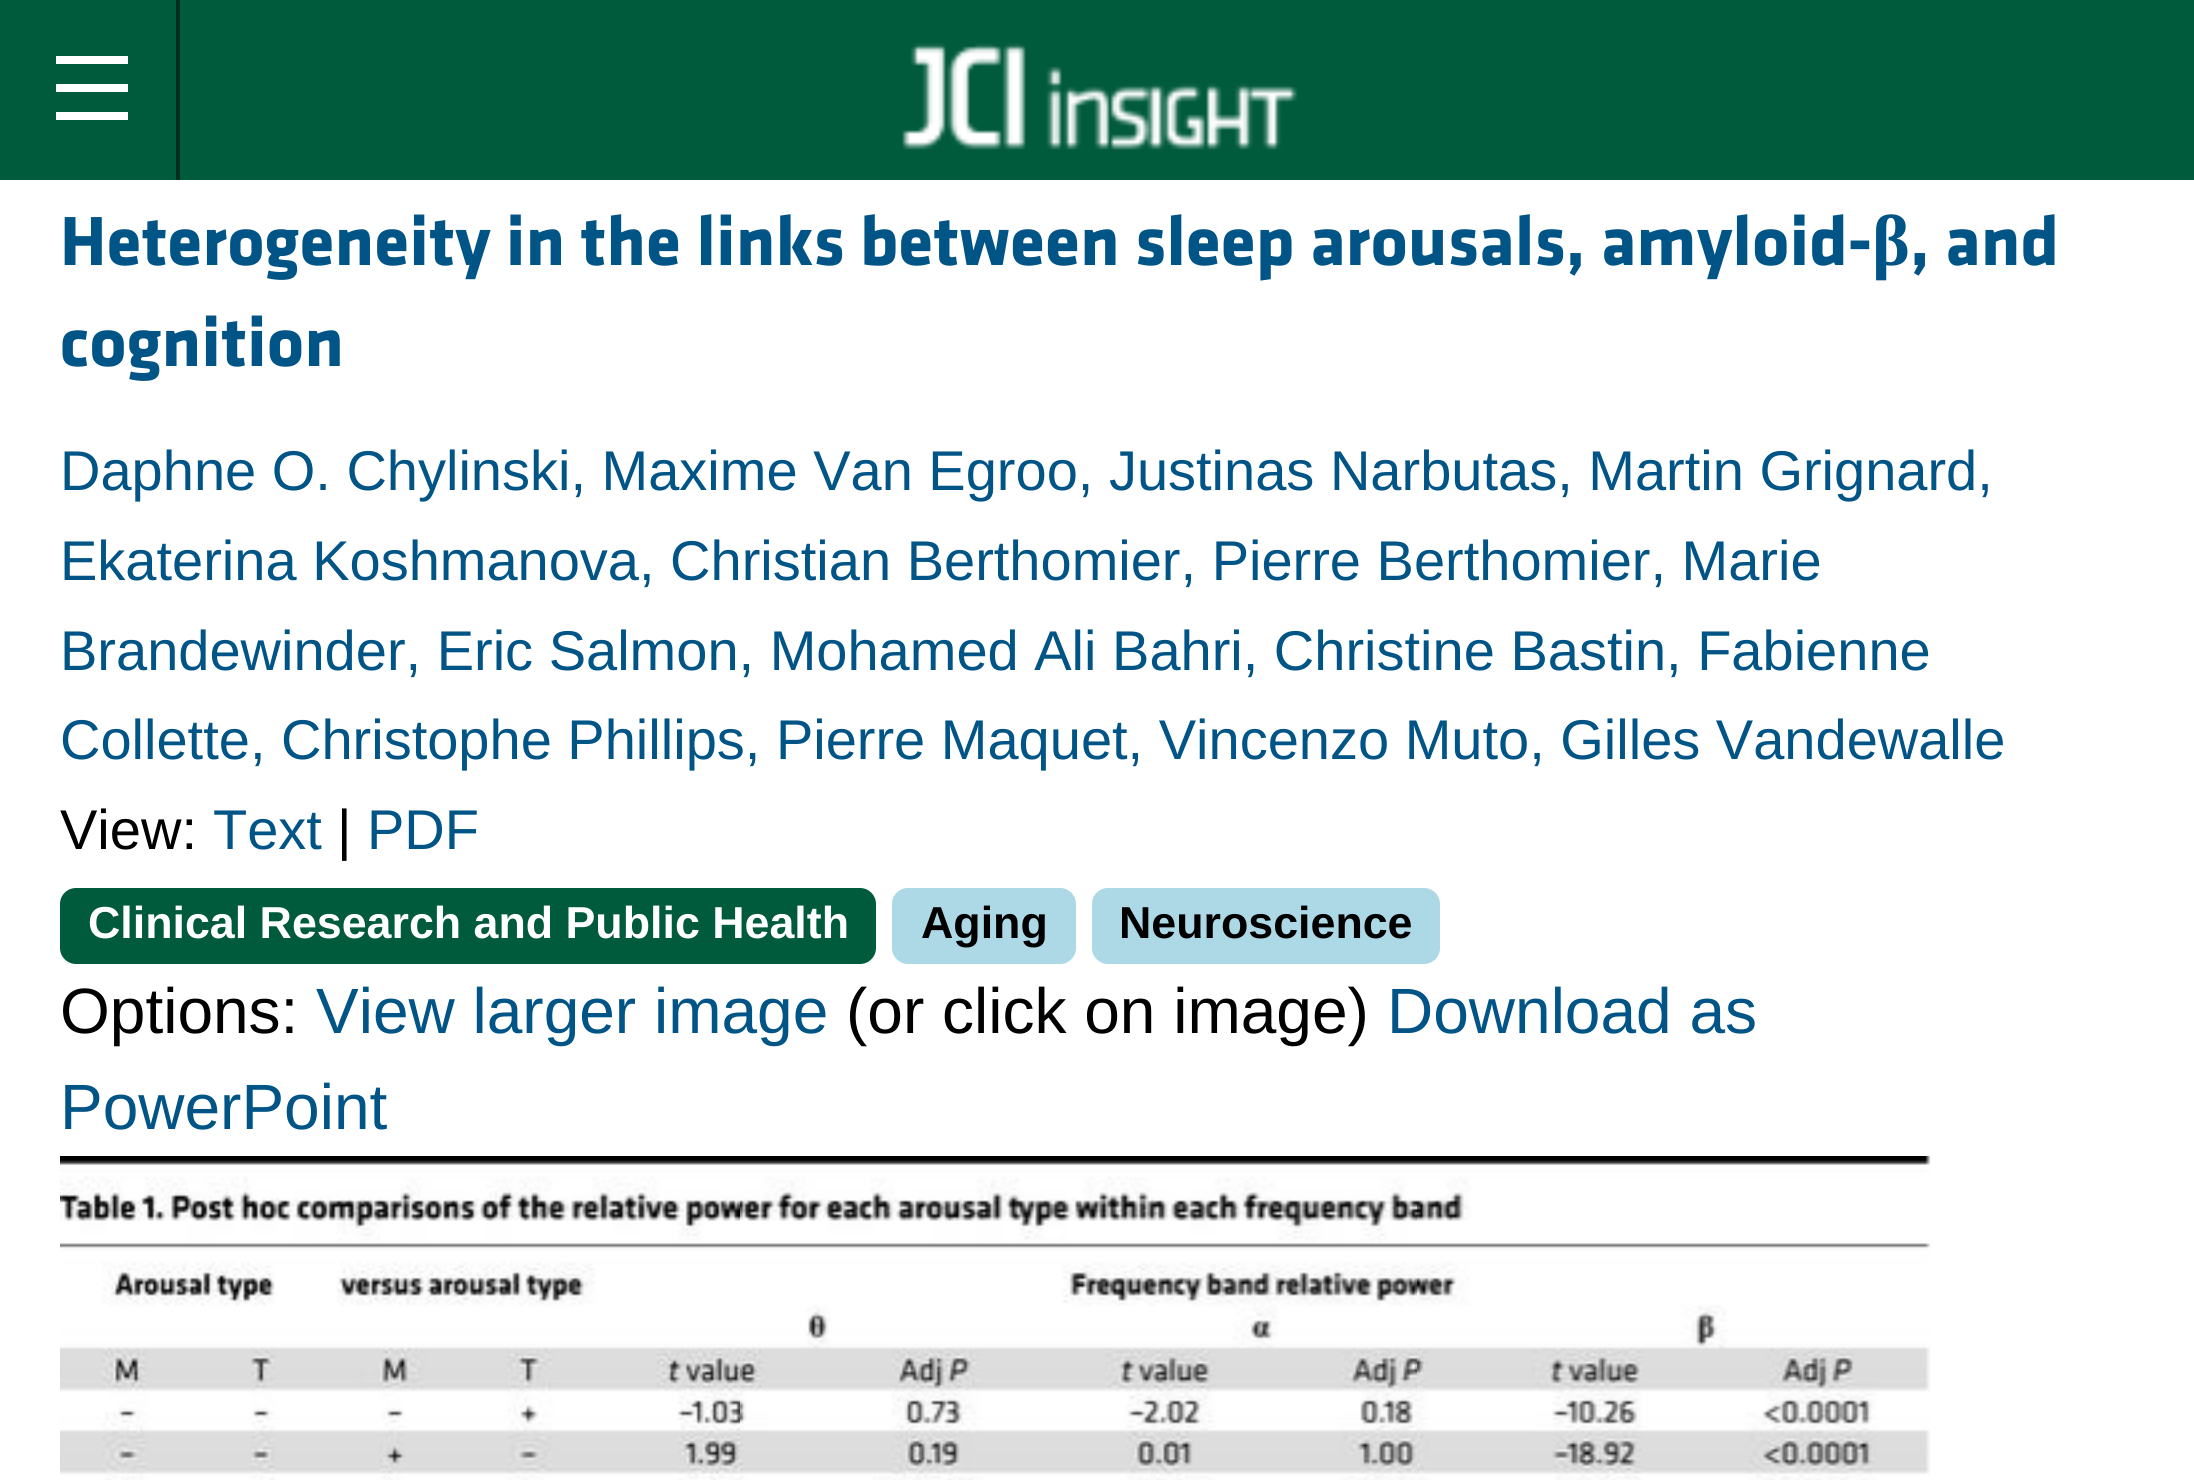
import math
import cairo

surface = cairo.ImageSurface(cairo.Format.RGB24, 2194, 1480)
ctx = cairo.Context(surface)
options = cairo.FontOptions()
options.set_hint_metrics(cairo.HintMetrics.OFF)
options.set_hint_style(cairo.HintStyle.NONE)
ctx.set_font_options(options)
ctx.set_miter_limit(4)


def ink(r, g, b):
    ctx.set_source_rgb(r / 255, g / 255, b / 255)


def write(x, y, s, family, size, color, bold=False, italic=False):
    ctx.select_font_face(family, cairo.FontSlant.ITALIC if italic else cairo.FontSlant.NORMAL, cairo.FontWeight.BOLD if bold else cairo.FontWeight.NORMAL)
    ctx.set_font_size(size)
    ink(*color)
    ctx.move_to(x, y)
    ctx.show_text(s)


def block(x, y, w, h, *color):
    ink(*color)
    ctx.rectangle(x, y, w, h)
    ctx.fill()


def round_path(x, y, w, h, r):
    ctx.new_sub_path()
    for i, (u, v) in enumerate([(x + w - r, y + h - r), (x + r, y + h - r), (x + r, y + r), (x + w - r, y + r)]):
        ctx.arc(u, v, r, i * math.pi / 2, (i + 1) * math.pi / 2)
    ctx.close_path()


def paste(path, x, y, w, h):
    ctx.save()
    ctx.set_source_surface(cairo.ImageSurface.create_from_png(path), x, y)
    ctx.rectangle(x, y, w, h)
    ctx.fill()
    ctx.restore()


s1 = dict(family="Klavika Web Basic", size=72, color=(1, 84, 134), bold=True)
s2 = dict(family="Liberation Serif", size=72, color=(1, 84, 134), bold=True)
s3 = dict(family="Liberation Sans", size=56, color=(1, 84, 134))
s4 = dict(family="Liberation Sans", size=56, color=(0, 0, 0))
s5 = dict(family="Liberation Sans", size=44.75, color=(255, 255, 255), bold=True)
s6 = dict(family="Liberation Sans", size=44.75, color=(0, 0, 0), bold=True)
s7 = dict(family="Liberation Sans", size=64, color=(0, 0, 0))
s8 = dict(family="Liberation Sans", size=64, color=(1, 84, 134))

ink(255, 255, 255)
ctx.paint()
block(0, 0, 2194, 180, 0, 90, 60)
block(176, 0, 4, 180, 0, 45, 30)
block(56, 112, 72, 8, 255, 255, 255)
block(56, 84, 72, 8, 255, 255, 255)
block(56, 56, 72, 8, 255, 255, 255)
paste("pic1.png", 902, 43, 396, 107)
write(60, 265, "Heterogeneity in the links between sleep arousals, amyloid-", **s1)
write(1872, 265, "β", **s2)
write(1910, 265, ", and", **s1)
write(60, 366, "cognition", **s1)
write(60, 490, "Daphne O. Chylinski, Maxime Van Egroo, Justinas Narbutas, Martin Grignard,", **s3)
write(60, 580, "Ekaterina Koshmanova, Christian Berthomier, Pierre Berthomier, Marie", **s3)
write(60, 670, "Brandewinder, Eric Salmon, Mohamed Ali Bahri, Christine Bastin, Fabienne", **s3)
write(60, 759, "Collette, Christophe Phillips, Pierre Maquet, Vincenzo Muto, Gilles Vandewalle", **s3)
write(60, 849, "View:", **s4)
write(213, 849, "Text", **s3)
write(337, 849, "|", **s4)
write(367, 849, "PDF", **s3)
ink(0, 90, 60)
round_path(60, 888, 816, 76, 16)
ctx.fill()
write(88, 938, "Clinical Research and Public Health", **s5)
ink(173, 216, 230)
round_path(892, 888, 184, 76, 16)
ctx.fill()
write(921, 938, "Aging", **s6)
ink(173, 216, 230)
round_path(1092, 888, 348, 76, 16)
ctx.fill()
write(1119, 938, "Neuroscience", **s6)
write(60, 1033, "Options:", **s7)
write(316, 1033, "View larger image", **s8)
write(846, 1033, "(or click on image)", **s7)
write(1387, 1033, "Download as", **s8)
write(60, 1129, "PowerPoint", **s8)
paste("pic2.png", 60, 1156, 1871, 324)
surface.write_to_png("screenshot.png")
